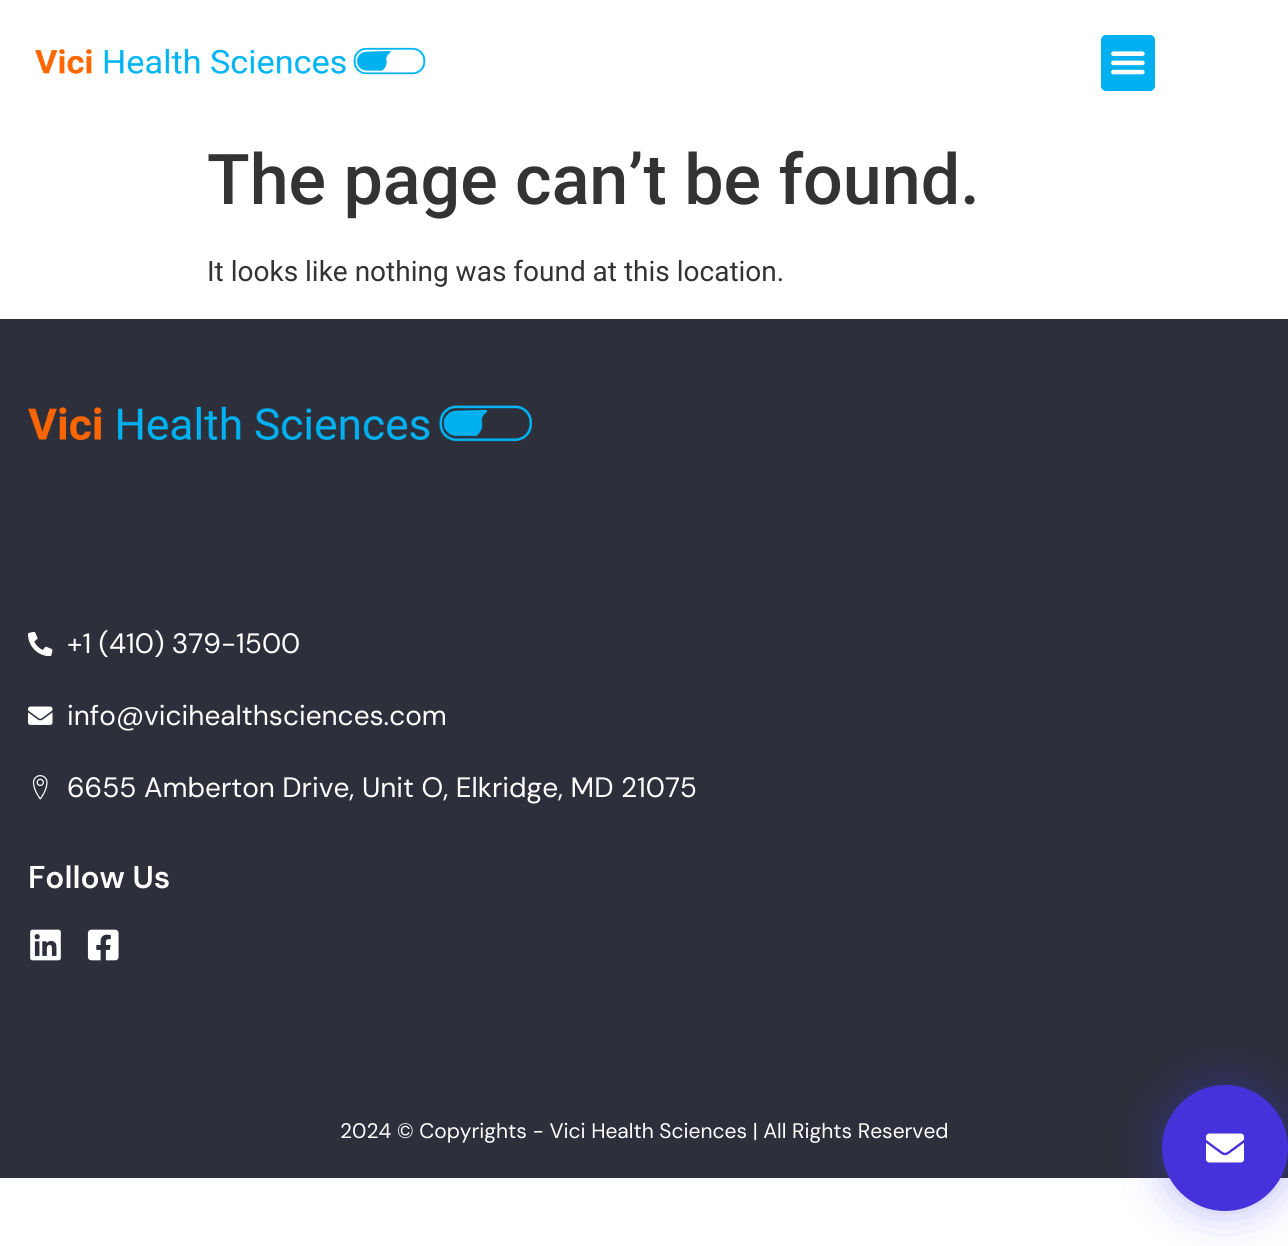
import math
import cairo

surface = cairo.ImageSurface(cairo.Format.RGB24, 1288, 1246)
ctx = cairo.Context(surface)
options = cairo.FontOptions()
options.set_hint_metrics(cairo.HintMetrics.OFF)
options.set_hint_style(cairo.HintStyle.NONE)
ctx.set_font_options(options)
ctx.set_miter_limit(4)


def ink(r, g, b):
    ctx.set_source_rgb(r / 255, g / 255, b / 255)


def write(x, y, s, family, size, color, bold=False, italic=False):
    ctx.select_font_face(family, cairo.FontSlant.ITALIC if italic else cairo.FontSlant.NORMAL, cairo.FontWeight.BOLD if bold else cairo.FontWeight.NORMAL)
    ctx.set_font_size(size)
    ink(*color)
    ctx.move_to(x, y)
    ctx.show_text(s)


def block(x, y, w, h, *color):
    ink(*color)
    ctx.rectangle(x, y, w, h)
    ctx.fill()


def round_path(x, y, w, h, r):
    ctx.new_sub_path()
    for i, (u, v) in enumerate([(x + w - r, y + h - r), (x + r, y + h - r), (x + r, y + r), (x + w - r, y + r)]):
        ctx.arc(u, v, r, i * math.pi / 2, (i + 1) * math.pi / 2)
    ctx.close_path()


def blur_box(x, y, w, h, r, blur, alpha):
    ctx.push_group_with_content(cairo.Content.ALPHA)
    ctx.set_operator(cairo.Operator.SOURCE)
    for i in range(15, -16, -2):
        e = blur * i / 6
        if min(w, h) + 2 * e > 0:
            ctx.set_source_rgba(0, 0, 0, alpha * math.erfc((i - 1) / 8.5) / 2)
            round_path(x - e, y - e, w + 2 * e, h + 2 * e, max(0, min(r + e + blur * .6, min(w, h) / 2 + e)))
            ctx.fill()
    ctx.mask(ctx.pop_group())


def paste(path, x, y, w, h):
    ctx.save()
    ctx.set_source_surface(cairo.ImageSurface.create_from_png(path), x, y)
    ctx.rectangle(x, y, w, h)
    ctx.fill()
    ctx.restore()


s1 = dict(family="Roboto Medium", size=70, color=(51, 51, 51))
s2 = dict(family="Roboto", size=28, color=(51, 51, 51))
s3 = dict(family="DM Sans", size=28, color=(255, 255, 255))
s4 = dict(family="DM Sans SemiBold", size=31.5, color=(255, 255, 255))
s5 = dict(family="DM Sans", size=21, color=(255, 255, 255))

ink(255, 255, 255)
ctx.paint()
paste("pic1.png", 35, 47, 391, 28)
ink(0, 177, 241)
round_path(1101, 35, 54, 56, 5)
ctx.fill()
paste("pic2.png", 1111, 51, 34, 24)
write(207, 204, "The page can’t be found.", **s1)
write(207, 281, "It looks like nothing was found at this location.", **s2)
block(0, 319, 1288, 859, 45, 47, 59)
paste("pic3.png", 28, 405, 504, 37)
ink(53, 56, 240)
blur_box(1162, 1085, 126, 126, 63, 22, 0.35)
ink(70, 50, 218)
ctx.arc(1225, 1148, 63, 0, 2 * math.pi)
ctx.fill()
paste("pic4.png", 1206, 1133, 38, 30)
paste("pic5.png", 28, 632, 25, 24)
write(67, 653, "+1 (410) 379-1500", **s3)
paste("pic6.png", 28, 706, 25, 19)
write(67, 725, "info@vicihealthsciences.com", **s3)
paste("pic7.png", 32, 775, 16, 25)
write(67, 797, "6655 Amberton Drive, Unit O, Elkridge, MD 21075", **s3)
write(28, 888, "Follow Us", **s4)
paste("pic8.png", 30, 929, 31, 32)
paste("pic9.png", 87, 929, 32, 32)
write(340, 1138, "2024 © Copyrights - Vici Health Sciences | All Rights Reserved", **s5)
surface.write_to_png("screenshot.png")
